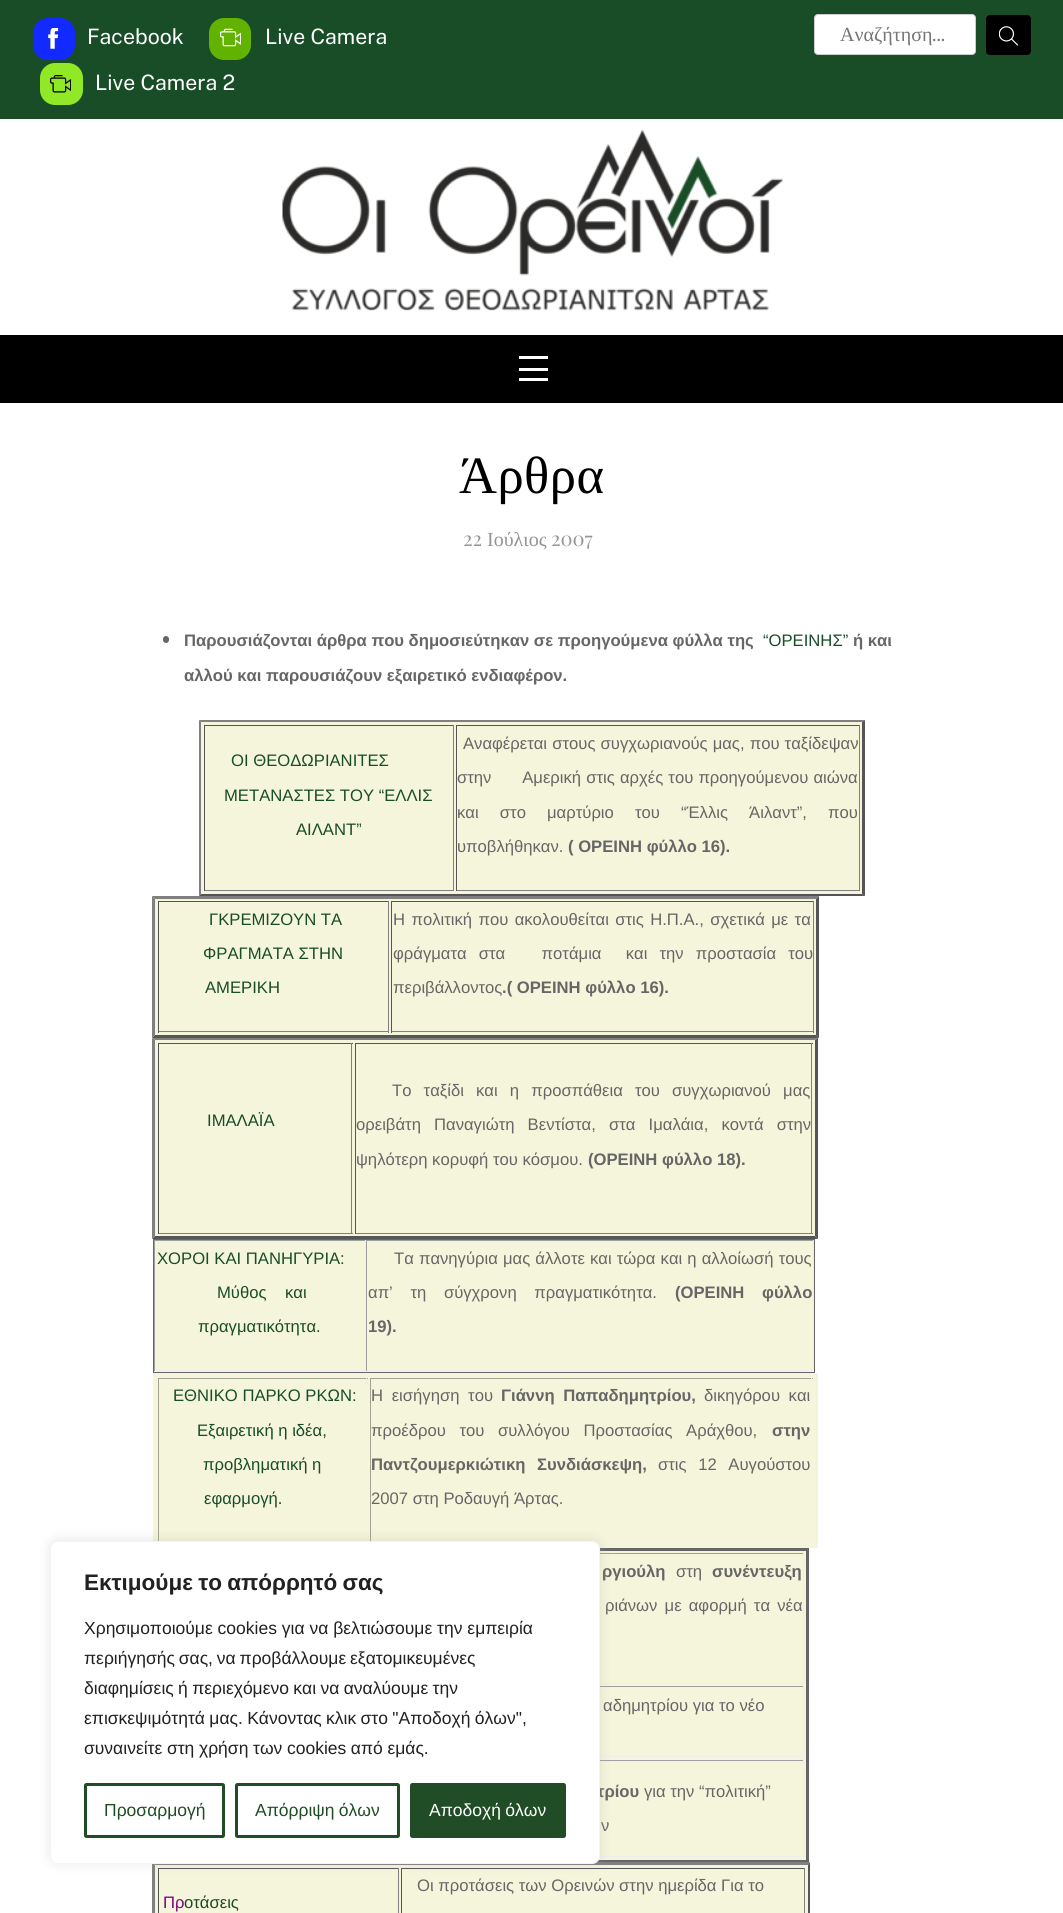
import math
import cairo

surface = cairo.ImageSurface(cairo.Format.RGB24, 1063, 1913)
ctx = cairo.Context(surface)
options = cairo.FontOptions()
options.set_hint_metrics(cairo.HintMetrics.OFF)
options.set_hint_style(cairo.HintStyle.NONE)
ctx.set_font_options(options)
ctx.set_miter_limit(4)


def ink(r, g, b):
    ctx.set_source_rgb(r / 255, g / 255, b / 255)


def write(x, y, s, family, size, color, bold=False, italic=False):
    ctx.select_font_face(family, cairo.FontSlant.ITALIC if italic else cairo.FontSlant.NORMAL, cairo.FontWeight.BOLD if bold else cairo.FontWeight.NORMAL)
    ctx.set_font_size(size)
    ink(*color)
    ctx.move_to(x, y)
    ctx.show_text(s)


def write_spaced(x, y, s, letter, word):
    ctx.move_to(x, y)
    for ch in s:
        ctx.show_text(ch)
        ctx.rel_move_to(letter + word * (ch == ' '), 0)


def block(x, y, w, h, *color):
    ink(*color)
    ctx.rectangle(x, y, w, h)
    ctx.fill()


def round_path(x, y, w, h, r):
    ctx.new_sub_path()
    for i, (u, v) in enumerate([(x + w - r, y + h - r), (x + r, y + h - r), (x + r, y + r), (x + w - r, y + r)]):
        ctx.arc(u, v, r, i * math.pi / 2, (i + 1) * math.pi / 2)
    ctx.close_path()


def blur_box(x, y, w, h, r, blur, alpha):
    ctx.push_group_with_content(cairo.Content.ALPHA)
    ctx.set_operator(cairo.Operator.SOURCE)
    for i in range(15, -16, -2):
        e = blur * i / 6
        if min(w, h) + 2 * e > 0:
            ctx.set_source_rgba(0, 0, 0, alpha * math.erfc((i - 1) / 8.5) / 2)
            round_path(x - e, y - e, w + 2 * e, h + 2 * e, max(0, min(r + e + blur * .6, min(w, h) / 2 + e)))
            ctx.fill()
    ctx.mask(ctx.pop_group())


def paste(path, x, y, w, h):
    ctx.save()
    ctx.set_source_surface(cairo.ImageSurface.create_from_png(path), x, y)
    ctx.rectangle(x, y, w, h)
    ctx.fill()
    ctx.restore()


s1 = dict(family="Public Sans", size=21.25, color=(255, 255, 255))
s2 = dict(family="Liberation Serif", size=20, color=(117, 117, 117))
s3 = dict(family="Judson", size=20, color=(117, 117, 117))
s4 = dict(family="Playfair Display", size=20, color=(148, 148, 148))
s5 = dict(family="Liberation Serif", size=20, color=(148, 148, 148))
s6 = dict(family="Liberation Sans", size=16.65, color=(102, 102, 102), bold=True)
s7 = dict(family="Liberation Sans", size=16.65, color=(24, 77, 39))
s8 = dict(family="Liberation Sans", size=16.65, color=(102, 102, 102))
s9 = dict(family="Liberation Sans", size=16.65, color=(128, 0, 128))
s10 = dict(family="Liberation Sans", size=17.5, color=(33, 33, 33))
s11 = dict(family="Liberation Sans", size=17.5, color=(32, 77, 37))

ink(255, 255, 255)
ctx.paint()
block(0, 0, 1063, 119, 24, 77, 39)
ink(18, 42, 255)
round_path(33, 18, 42, 42, 15)
ctx.fill()
paste("pic1.png", 48, 28, 11, 21)
write(87, 44, "Facebook", **s1)
ink(98, 179, 0)
round_path(209, 18, 42, 42, 15)
ctx.fill()
paste("pic2.png", 220, 28, 21, 19)
write(265, 44, "Live Camera", **s1)
ink(145, 232, 39)
round_path(40, 63, 43, 42, 15)
ctx.fill()
paste("pic3.png", 50, 75, 21, 18)
write(95, 90, "Live Camera 2", **s1)
round_path(814.5, 14.5, 161, 40, 3.5)
ctx.fill_preserve()
ink(204, 204, 204)
ctx.set_line_width(1)
ctx.stroke()
write(840, 41, "Αναζήτηση", **s2)
write(932, 41, "...", **s3)
ink(0, 0, 0)
round_path(986, 15, 45, 40, 4)
ctx.fill()
paste("pic4.png", 999, 26, 20, 20)
paste("pic5.png", 282, 130, 501, 181)
block(0, 335, 1063, 68, 0, 0, 0)
block(519, 378, 29, 3, 255, 255, 255)
block(519, 356, 29, 3, 255, 255, 255)
block(519, 368, 29, 3, 255, 255, 255)
ctx.select_font_face("Liberation Serif")
ctx.set_font_size(52.5)
ink(0, 0, 0)
write_spaced(459, 493, "Άρθρα", 0.5, 0)
write(463, 546, "22", **s4)
write(487, 546, "Ιούλιος", **s5)
write(551, 546, "2007", **s4)
ink(102, 102, 102)
round_path(163, 636, 6, 7, 3)
ctx.fill()
write(184, 646, "Παρουσιάζονται άρθρα που δημοσιεύτηκαν σε προηγούμενα φύλλα της", **s6)
write(763, 646, "“ΟΡΕΙΝΗΣ”", **s7)
write(853, 646, "ή και", **s6)
write(184, 681, "αλλού και παρουσιάζουν εξαιρετικό ενδιαφέρον.", **s6)
block(199, 720, 666, 176, 245, 245, 220)
ink(128, 128, 128)
ctx.new_path()
ctx.move_to(199, 720)
ctx.line_to(865, 720)
ctx.line_to(862, 722)
ctx.line_to(201, 722)
ctx.close_path()
ctx.fill()
ink(85, 85, 85)
ctx.new_path()
ctx.move_to(865, 720)
ctx.line_to(865, 896)
ctx.line_to(862, 894)
ctx.line_to(862, 722)
ctx.close_path()
ctx.fill()
ctx.new_path()
ctx.move_to(865, 896)
ctx.line_to(199, 896)
ctx.line_to(201, 894)
ctx.line_to(862, 894)
ctx.close_path()
ctx.fill()
ink(128, 128, 128)
ctx.new_path()
ctx.move_to(199, 896)
ctx.line_to(199, 720)
ctx.line_to(201, 722)
ctx.line_to(201, 894)
ctx.close_path()
ctx.fill()
block(204, 725, 250, 1, 85, 85, 85)
block(453, 725, 1, 166, 128, 128, 128)
block(204, 890, 250, 1, 128, 128, 128)
block(204, 725, 1, 166, 85, 85, 85)
write(231, 766, "ΟΙ ΘΕΟΔΩΡΙΑΝΙΤΕΣ", **s7)
write(224, 801, "ΜΕΤΑΝΑΣΤΕΣ ΤΟΥ “ΕΛΛΙΣ", **s7)
write(296, 835, "ΑΙΛΑΝΤ”", **s7)
block(456, 725, 404, 1, 85, 85, 85)
block(859, 725, 1, 166, 128, 128, 128)
block(456, 890, 404, 1, 128, 128, 128)
block(456, 725, 1, 166, 85, 85, 85)
ink(102, 102, 102)
write_spaced(463, 749, "Αναφέρεται στους συγχωριανούς μας, που ταξίδεψαν", 0, 0.5)
write_spaced(457, 783, "στην      Αμερική στις αρχές του προηγούμενου αιώνα", 0, 0.5)
write_spaced(457, 818, "και στο μαρτύριο του “Έλλις Άιλαντ”, που", 0, 16.5)
write(457, 852, "υποβλήθηκαν.", **s8)
write(568, 852, "( ΟΡΕΙΝΗ φύλλο 16).", **s6)
block(153, 896, 666, 142, 245, 245, 220)
ink(128, 128, 128)
ctx.new_path()
ctx.move_to(152, 896)
ctx.line_to(819, 896)
ctx.line_to(816, 899)
ctx.line_to(155, 899)
ctx.close_path()
ctx.fill()
ink(85, 85, 85)
ctx.new_path()
ctx.move_to(819, 896)
ctx.line_to(819, 1038)
ctx.line_to(816, 1035)
ctx.line_to(816, 899)
ctx.close_path()
ctx.fill()
ctx.new_path()
ctx.move_to(819, 1038)
ctx.line_to(152, 1038)
ctx.line_to(155, 1035)
ctx.line_to(816, 1035)
ctx.close_path()
ctx.fill()
ink(128, 128, 128)
ctx.new_path()
ctx.move_to(152, 1038)
ctx.line_to(152, 896)
ctx.line_to(155, 899)
ctx.line_to(155, 1035)
ctx.close_path()
ctx.fill()
block(158, 901, 231, 1, 85, 85, 85)
block(388, 901, 1, 132, 128, 128, 128)
block(158, 1031, 231, 1, 128, 128, 128)
block(158, 901, 1, 132, 85, 85, 85)
write(209, 925, "ΓΚΡΕΜΙΖΟΥΝ ΤΑ", **s7)
write(203, 959, "ΦΡΑΓΜΑΤΑ ΣΤΗΝ", **s7)
write(205, 993, "ΑΜΕΡΙΚΗ", **s7)
block(391, 901, 423, 1, 85, 85, 85)
block(813, 901, 1, 132, 128, 128, 128)
block(391, 1031, 423, 1, 128, 128, 128)
block(391, 901, 1, 132, 85, 85, 85)
ink(102, 102, 102)
write_spaced(393, 925, "Η πολιτική που ακολουθείται στις Η.Π.Α., σχετικά με τα", 0, 1.75)
write_spaced(393, 959, "φράγματα στα   ποτάμια  και την προστασία του", 0, 7.5)
write(393, 993, "περιβάλλοντος", **s8)
write(502, 993, ".( ΟΡΕΙΝΗ φύλλο 16).", **s6)
block(153, 1038, 665, 201, 245, 245, 220)
ink(128, 128, 128)
ctx.new_path()
ctx.move_to(152, 1038)
ctx.line_to(818, 1038)
ctx.line_to(815, 1040)
ctx.line_to(155, 1040)
ctx.close_path()
ctx.fill()
ink(85, 85, 85)
ctx.new_path()
ctx.move_to(818, 1038)
ctx.line_to(818, 1239)
ctx.line_to(815, 1236)
ctx.line_to(815, 1040)
ctx.close_path()
ctx.fill()
ctx.new_path()
ctx.move_to(818, 1239)
ctx.line_to(152, 1239)
ctx.line_to(155, 1236)
ctx.line_to(815, 1236)
ctx.close_path()
ctx.fill()
ink(128, 128, 128)
ctx.new_path()
ctx.move_to(152, 1239)
ctx.line_to(152, 1038)
ctx.line_to(155, 1040)
ctx.line_to(155, 1236)
ctx.close_path()
ctx.fill()
block(158, 1043, 195, 1, 85, 85, 85)
block(351, 1043, 1, 191, 128, 128, 128)
block(158, 1233, 195, 1, 128, 128, 128)
block(158, 1043, 1, 191, 85, 85, 85)
write(207, 1126, "ΙΜΑΛΑΪΑ", **s7)
block(355, 1043, 458, 1, 85, 85, 85)
block(811, 1043, 1, 191, 128, 128, 128)
block(355, 1233, 458, 1, 128, 128, 128)
block(355, 1043, 1, 191, 85, 85, 85)
ink(102, 102, 102)
write_spaced(392, 1096, "Το ταξίδι και η προσπάθεια του συγχωριανού μας", 0, 7.5)
write_spaced(356, 1130, "ορειβάτη Παναγιώτη Βεντίστα, στα Ιμαλάια, κοντά στην", 0, 8.5)
write(356, 1165, "ψηλότερη κορυφή του κόσμου.", **s8)
write(588, 1165, "(ΟΡΕΙΝΗ φύλλο 18).", **s6)
block(154, 1241, 660, 131, 245, 245, 220)
ctx.rectangle(153.5, 1239.5, 661, 133)
ink(102, 102, 102)
ctx.stroke()
block(154, 1240, 660, 1, 159, 159, 159)
block(365, 1240, 1, 131, 238, 238, 238)
block(154, 1370, 212, 1, 238, 238, 238)
block(154, 1240, 1, 131, 159, 159, 159)
write(157, 1264, "ΧΟΡΟΙ ΚΑΙ ΠΑΝΗΓΥΡΙΑ:", **s7)
write(217, 1298, "Μύθος    και", **s7)
write(198, 1332, "πραγματικότητα.", **s7)
block(813, 1240, 1, 131, 238, 238, 238)
block(366, 1370, 448, 1, 238, 238, 238)
block(366, 1240, 1, 131, 159, 159, 159)
ink(102, 102, 102)
write_spaced(394, 1264, "Τα πανηγύρια μας άλλοτε και τώρα και η αλλοίωσή τους", 0, 0.5)
write_spaced(368, 1298, "απ’ τη σύγχρονη πραγματικότητα.", 0, 13)
ctx.select_font_face("Liberation Sans", cairo.FontSlant.NORMAL, cairo.FontWeight.BOLD)
write_spaced(675, 1298, "(ΟΡΕΙΝΗ φύλλο", 0, 13)
write(368, 1332, "19).", **s6)
block(153, 1373, 665, 175, 245, 245, 220)
block(158, 1378, 210, 1, 163, 163, 147)
block(366, 1378, 1, 1, 245, 245, 220)
block(158, 1378, 1, 165, 163, 163, 147)
write(173, 1401, "ΕΘΝΙΚΟ ΠΑΡΚΟ ΡΚΩΝ:", **s7)
write(197, 1436, "Εξαιρετική η ιδέα,", **s7)
write(203, 1470, "προβληματική η", **s7)
write(204, 1504, "εφαρμογή.", **s7)
block(370, 1378, 443, 1, 163, 163, 147)
block(811, 1378, 1, 1, 245, 245, 220)
block(370, 1378, 1, 165, 163, 163, 147)
ink(102, 102, 102)
write_spaced(371, 1401, "Η εισήγηση του", 0, 4)
ctx.select_font_face("Liberation Sans", cairo.FontSlant.NORMAL, cairo.FontWeight.BOLD)
write_spaced(501, 1401, "Γιάννη Παπαδημητρίου,", 0, 4)
ctx.select_font_face("Liberation Sans")
write_spaced(704, 1401, "δικηγόρου και", 0, 4)
write_spaced(371, 1436, "προέδρου του συλλόγου Προστασίας Αράχθου,", 0, 9)
write(772, 1436, "στην", **s6)
write_spaced(371, 1470, "Παντζουμερκιώτικη Συνδιάσκεψη,", 0, 7)
ctx.select_font_face("Liberation Sans")
write_spaced(658, 1470, "στις 12 Αυγούστου", 0, 7)
write(371, 1504, "2007 στη Ροδαυγή Άρτας.", **s8)
block(598, 1551, 208, 309, 245, 245, 220)
ctx.rectangle(154.5, 1549.5, 653, 312)
ink(102, 102, 102)
ctx.set_line_width(3)
ctx.stroke()
block(600, 1553, 204, 1, 159, 159, 159)
block(803, 1553, 1, 131, 238, 238, 238)
block(600, 1683, 204, 1, 238, 238, 238)
ctx.select_font_face("Liberation Sans", cairo.FontSlant.NORMAL, cairo.FontWeight.BOLD)
ink(102, 102, 102)
write_spaced(602, 1577, "ργιούλη", 0, 6)
write(676, 1577, "στη", **s8)
write(712, 1577, "συνέντευξη", **s6)
ctx.select_font_face("Liberation Sans")
write_spaced(605, 1611, "ριάνων με αφορμή τα νέα", 0, 2.5)
block(600, 1686, 204, 1, 159, 159, 159)
block(803, 1686, 1, 72, 238, 238, 238)
block(600, 1756, 204, 1, 238, 238, 238)
write(603, 1711, "αδημητρίου για το νέο", **s8)
block(600, 1760, 204, 1, 159, 159, 159)
block(803, 1760, 1, 98, 238, 238, 238)
block(599, 1856, 205, 1, 238, 238, 238)
write(597, 1797, "τρίου", **s6)
write(644, 1797, "για την “πολιτική”", **s8)
write(601, 1831, "ν", **s8)
block(154, 1863, 656, 50, 245, 245, 220)
ink(128, 128, 128)
ctx.new_path()
ctx.move_to(152, 1862)
ctx.line_to(810, 1862)
ctx.line_to(808, 1865)
ctx.line_to(155, 1865)
ctx.close_path()
ctx.fill()
ink(85, 85, 85)
ctx.new_path()
ctx.move_to(810, 1862)
ctx.line_to(810, 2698)
ctx.line_to(808, 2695)
ctx.line_to(808, 1865)
ctx.close_path()
ctx.fill()
ink(128, 128, 128)
ctx.new_path()
ctx.move_to(152, 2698)
ctx.line_to(152, 1862)
ctx.line_to(155, 1865)
ctx.line_to(155, 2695)
ctx.close_path()
ctx.fill()
block(401, 1868, 404, 1, 85, 85, 85)
block(804, 1868, 1, 45, 128, 128, 128)
block(401, 1868, 1, 45, 85, 85, 85)
write(417, 1891, "Οι προτάσεις των Ορεινών στην ημερίδα Για το", **s8)
block(158, 1868, 241, 1, 85, 85, 85)
block(398, 1868, 1, 45, 128, 128, 128)
block(158, 1868, 1, 45, 85, 85, 85)
write(163, 1908, "Πρ", **s9)
write(184, 1908, "οτάσεις", **s7)
ink(172, 171, 171)
blur_box(50, 1540, 550, 323, 8, 6, 0.3)
ink(255, 255, 255)
round_path(50.5, 1541.5, 549, 322, 7.5)
ctx.fill_preserve()
ink(244, 244, 244)
ctx.set_line_width(1)
ctx.stroke()
ctx.select_font_face("Liberation Sans", cairo.FontSlant.NORMAL, cairo.FontWeight.BOLD)
ctx.set_font_size(22.5)
ink(33, 33, 33)
write_spaced(84, 1590, "Εκτιμούμε το απόρρητό σας", 0, -1)
write(84, 1634, "Χρησιμοποιούμε cookies για να βελτιώσουμε την εμπειρία", **s10)
write_spaced(84, 1664, "περιήγησής σας, να προβάλλουμε εξατομικευμένες", 0, -1)
write_spaced(84, 1694, "διαφημίσεις ή περιεχόμενο και να αναλύουμε την", 0, -0.5)
write_spaced(84, 1724, "επισκεψιμότητά μας. Κάνοντας κλικ στο \"Αποδοχή όλων\",", 0, -0.5)
write_spaced(84, 1754, "συναινείτε στη χρήση των cookies από εμάς.", 0, -0.25)
round_path(85.5, 1784.5, 138, 52, 1)
ink(32, 77, 37)
ctx.set_line_width(3)
ctx.stroke()
write(104, 1816, "Προσαρμογή", **s11)
round_path(236.5, 1784.5, 162, 52, 1)
ctx.stroke()
write_spaced(255, 1816, "Απόρριψη όλων", 0, -0.5)
round_path(411.5, 1784.5, 153, 52, 1)
ctx.fill_preserve()
ctx.stroke()
ink(255, 255, 255)
write_spaced(429, 1816, "Αποδοχή όλων", 0, -0.5)
surface.write_to_png("screenshot.png")
